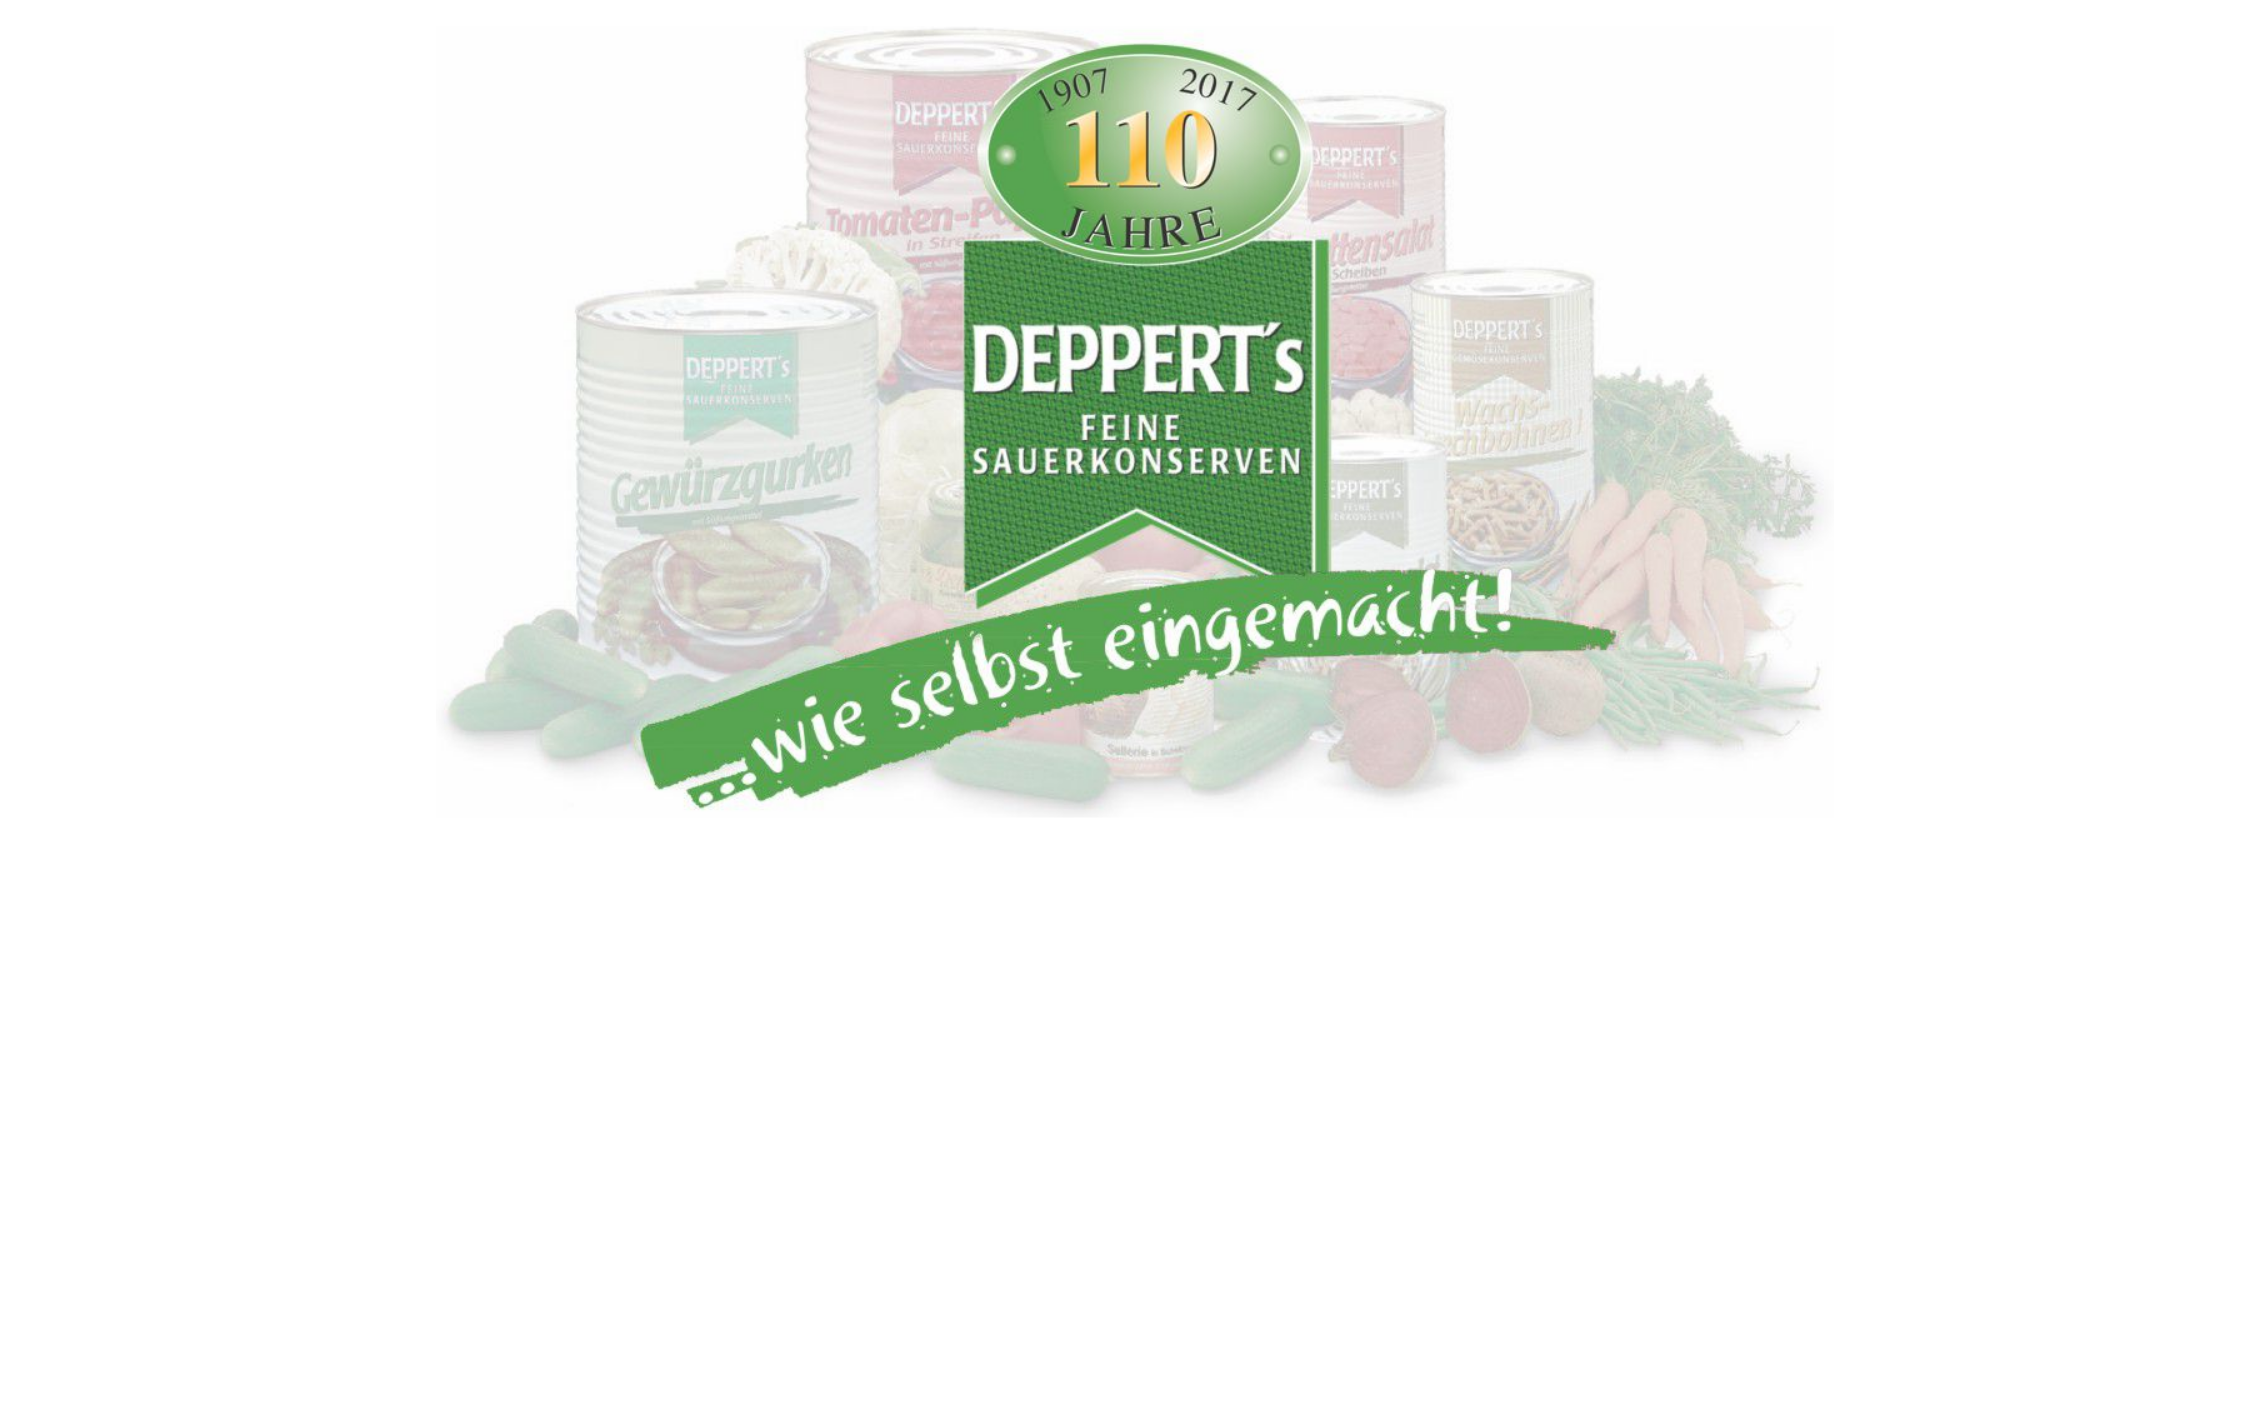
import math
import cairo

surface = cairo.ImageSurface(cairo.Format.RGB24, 2257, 1403)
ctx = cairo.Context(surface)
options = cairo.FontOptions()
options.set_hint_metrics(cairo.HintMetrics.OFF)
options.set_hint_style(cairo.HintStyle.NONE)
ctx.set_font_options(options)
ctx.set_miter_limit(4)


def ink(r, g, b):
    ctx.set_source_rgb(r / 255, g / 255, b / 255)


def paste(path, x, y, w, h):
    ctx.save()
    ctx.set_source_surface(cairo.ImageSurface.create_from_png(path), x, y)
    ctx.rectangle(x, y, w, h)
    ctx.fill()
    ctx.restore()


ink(255, 255, 255)
ctx.paint()
paste("pic1.png", 436, 26, 1398, 792)
surface.write_to_png("screenshot.png")
